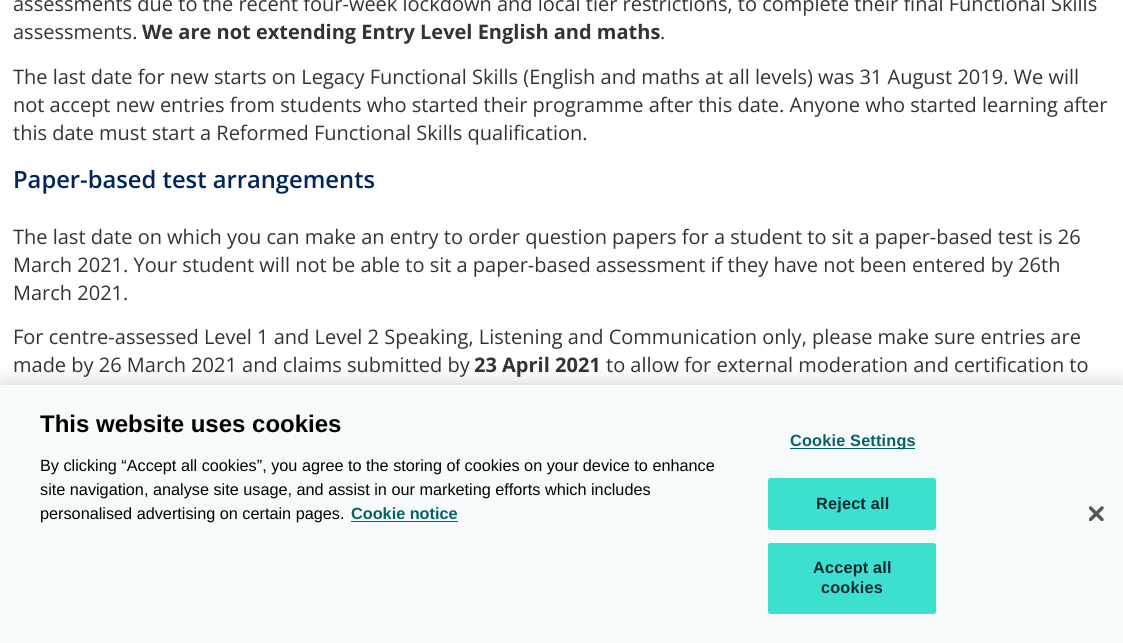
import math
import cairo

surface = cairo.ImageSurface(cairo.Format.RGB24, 1123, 643)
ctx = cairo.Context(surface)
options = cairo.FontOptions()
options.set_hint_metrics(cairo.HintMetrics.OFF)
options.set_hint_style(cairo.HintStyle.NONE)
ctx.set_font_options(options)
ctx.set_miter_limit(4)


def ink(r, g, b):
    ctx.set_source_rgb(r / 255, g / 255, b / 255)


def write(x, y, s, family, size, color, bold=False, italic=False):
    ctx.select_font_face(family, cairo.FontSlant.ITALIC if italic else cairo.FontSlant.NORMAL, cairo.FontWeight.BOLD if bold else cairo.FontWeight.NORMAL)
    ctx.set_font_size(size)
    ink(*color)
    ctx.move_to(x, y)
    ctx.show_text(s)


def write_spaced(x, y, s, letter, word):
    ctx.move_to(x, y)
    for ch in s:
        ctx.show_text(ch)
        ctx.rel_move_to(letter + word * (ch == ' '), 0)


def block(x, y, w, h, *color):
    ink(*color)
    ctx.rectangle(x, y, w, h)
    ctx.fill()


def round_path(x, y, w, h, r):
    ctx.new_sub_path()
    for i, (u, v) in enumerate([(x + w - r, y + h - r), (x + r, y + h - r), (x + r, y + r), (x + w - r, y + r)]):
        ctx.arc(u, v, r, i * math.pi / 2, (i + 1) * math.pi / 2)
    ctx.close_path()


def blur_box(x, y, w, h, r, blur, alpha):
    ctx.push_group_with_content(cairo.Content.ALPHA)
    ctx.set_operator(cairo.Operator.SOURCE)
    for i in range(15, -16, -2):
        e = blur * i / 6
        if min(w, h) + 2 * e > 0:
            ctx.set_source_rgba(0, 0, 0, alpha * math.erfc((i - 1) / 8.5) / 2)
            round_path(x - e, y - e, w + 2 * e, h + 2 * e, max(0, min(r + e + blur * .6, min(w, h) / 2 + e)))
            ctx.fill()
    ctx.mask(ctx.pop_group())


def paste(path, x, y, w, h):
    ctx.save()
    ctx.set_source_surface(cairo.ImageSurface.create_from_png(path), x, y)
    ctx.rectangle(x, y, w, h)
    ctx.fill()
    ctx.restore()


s1 = dict(family="Open Sans", size=20, color=(51, 51, 51))
s2 = dict(family="Open Sans", size=20, color=(51, 51, 51), bold=True)
s3 = dict(family="Open Sans SemiBold", size=23.75, color=(0, 36, 93))
s4 = dict(family="Liberation Sans", size=24, color=(0, 0, 0), bold=True)
s5 = dict(family="Liberation Sans", size=16.25, color=(0, 0, 0))
s6 = dict(family="Liberation Sans", size=16.25, color=(3, 98, 104), bold=True)

ink(255, 255, 255)
ctx.paint()
write(13, 11, "assessments due to the recent four-week lockdown and local tier restrictions, to complete their final Functional Skills", **s1)
write(13, 39, "assessments.", **s1)
write(142, 39, "We are not extending Entry Level English and maths", **s2)
write(660, 39, ".", **s1)
write(13, 84, "The last date for new starts on Legacy Functional Skills (English and maths at all levels) was 31 August 2019. We will", **s1)
write(13, 112, "not accept new entries from students who started their programme after this date. Anyone who started learning after", **s1)
write(13, 140, "this date must start a Reformed Functional Skills qualification.", **s1)
write(13, 188, "Paper-based test arrangements", **s3)
write(13, 244, "The last date on which you can make an entry to order question papers for a student to sit a paper-based test is 26", **s1)
write(13, 272, "March 2021. Your student will not be able to sit a paper-based assessment if they have not been entered by 26th", **s1)
write(13, 300, "March 2021.", **s1)
write(13, 344, "For centre-assessed Level 1 and Level 2 Speaking, Listening and Communication only, please make sure entries are", **s1)
write(13, 372, "made by 26 March 2021 and claims submitted by", **s1)
write(474, 372, "23 April 2021", **s2)
write(606, 372, "to allow for external moderation and certification to", **s1)
ink(0, 0, 0)
blur_box(0, 385, 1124, 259, 0, 11, 0.2)
block(0, 385, 1123, 258, 247, 250, 250)
write(40, 432, "This website uses cookies", **s4)
write(40, 471, "By clicking “Accept all cookies”, you agree to the storing of cookies on your device to enhance", **s5)
write(40, 495, "site navigation, analyse site usage, and assist in our marketing efforts which includes", **s5)
write(40, 519, "personalised advertising on certain pages.", **s5)
write(351, 519, "Cookie notice", **s6)
block(351, 521, 107, 1, 3, 98, 104)
block(790, 448, 125, 1, 3, 98, 104)
write_spaced(790, 446, "Cookie Settings", 0.2, 0)
ink(59, 224, 208)
round_path(768.5, 478.5, 167, 51, 2)
ctx.fill_preserve()
ctx.set_line_width(1)
ctx.stroke()
ink(17, 39, 48)
write_spaced(816, 509, "Reject all", 0.2, 0)
ink(59, 224, 208)
round_path(768.5, 543.5, 167, 70, 2)
ctx.fill_preserve()
ctx.stroke()
ink(17, 39, 48)
write_spaced(813, 573, "Accept all", 0.2, 0)
write_spaced(821, 593, "cookies", 0.2, 0)
paste("pic1.png", 1089, 506, 15, 15)
surface.write_to_png("screenshot.png")
